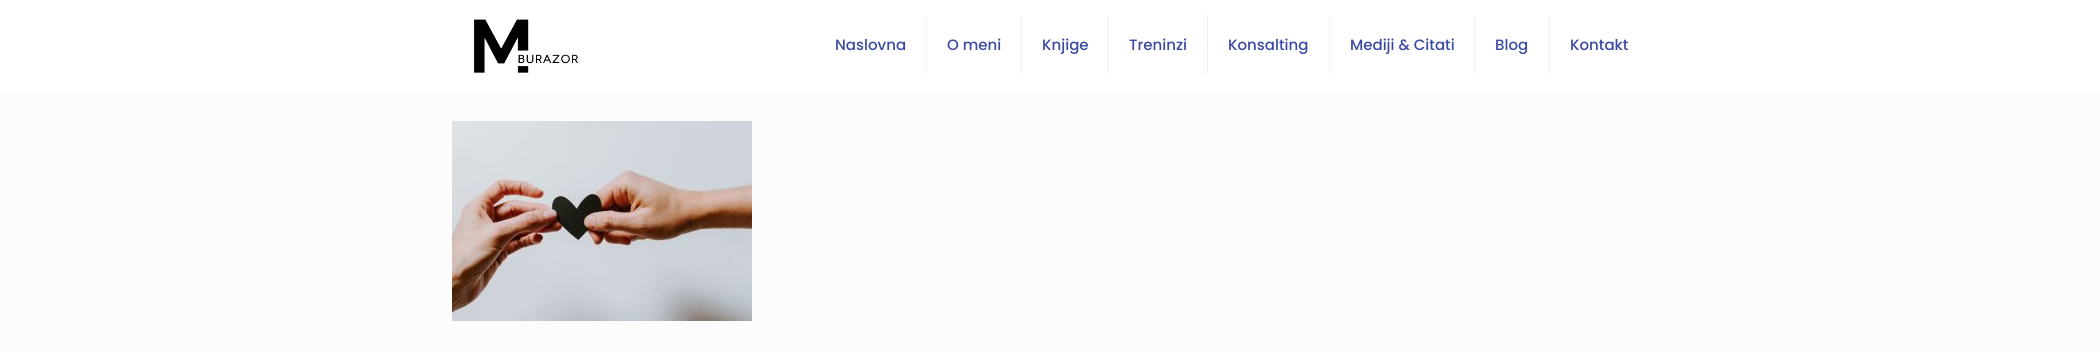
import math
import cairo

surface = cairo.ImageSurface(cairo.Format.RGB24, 2100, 352)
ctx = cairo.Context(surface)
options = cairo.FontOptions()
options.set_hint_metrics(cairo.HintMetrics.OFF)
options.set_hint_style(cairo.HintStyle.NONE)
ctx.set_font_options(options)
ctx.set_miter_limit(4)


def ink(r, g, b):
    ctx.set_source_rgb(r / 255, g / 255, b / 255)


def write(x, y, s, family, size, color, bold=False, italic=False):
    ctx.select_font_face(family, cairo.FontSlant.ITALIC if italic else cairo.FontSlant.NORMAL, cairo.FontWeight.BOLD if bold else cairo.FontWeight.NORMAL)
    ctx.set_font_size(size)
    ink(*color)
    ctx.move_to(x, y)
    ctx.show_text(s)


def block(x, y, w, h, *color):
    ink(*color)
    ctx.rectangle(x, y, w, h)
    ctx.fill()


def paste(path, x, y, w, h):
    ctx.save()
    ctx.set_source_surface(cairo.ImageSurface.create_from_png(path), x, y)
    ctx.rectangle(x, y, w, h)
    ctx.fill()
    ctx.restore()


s1 = dict(family="Poppins Medium", size=15, color=(58, 73, 161))

ink(252, 252, 252)
ctx.paint()
block(0, 0, 2100, 91, 255, 255, 255)
paste("pic1.png", 473, 19, 106, 54)
block(926, 15, 1, 60, 242, 242, 242)
write(835, 50, "Naslovna", **s1)
block(1021, 15, 1, 60, 242, 242, 242)
write(947, 50, "O meni", **s1)
block(1108, 15, 1, 60, 242, 242, 242)
write(1042, 50, "Knjige", **s1)
block(1207, 15, 1, 60, 242, 242, 242)
write(1129, 50, "Treninzi", **s1)
block(1329, 15, 1, 60, 242, 242, 242)
write(1228, 50, "Konsalting", **s1)
block(1474, 15, 1, 60, 242, 242, 242)
write(1350, 50, "Mediji & Citati", **s1)
block(1549, 15, 1, 60, 242, 242, 242)
write(1495, 50, "Blog", **s1)
write(1570, 50, "Kontakt", **s1)
paste("pic2.png", 452, 121, 300, 200)
surface.write_to_png("screenshot.png")
